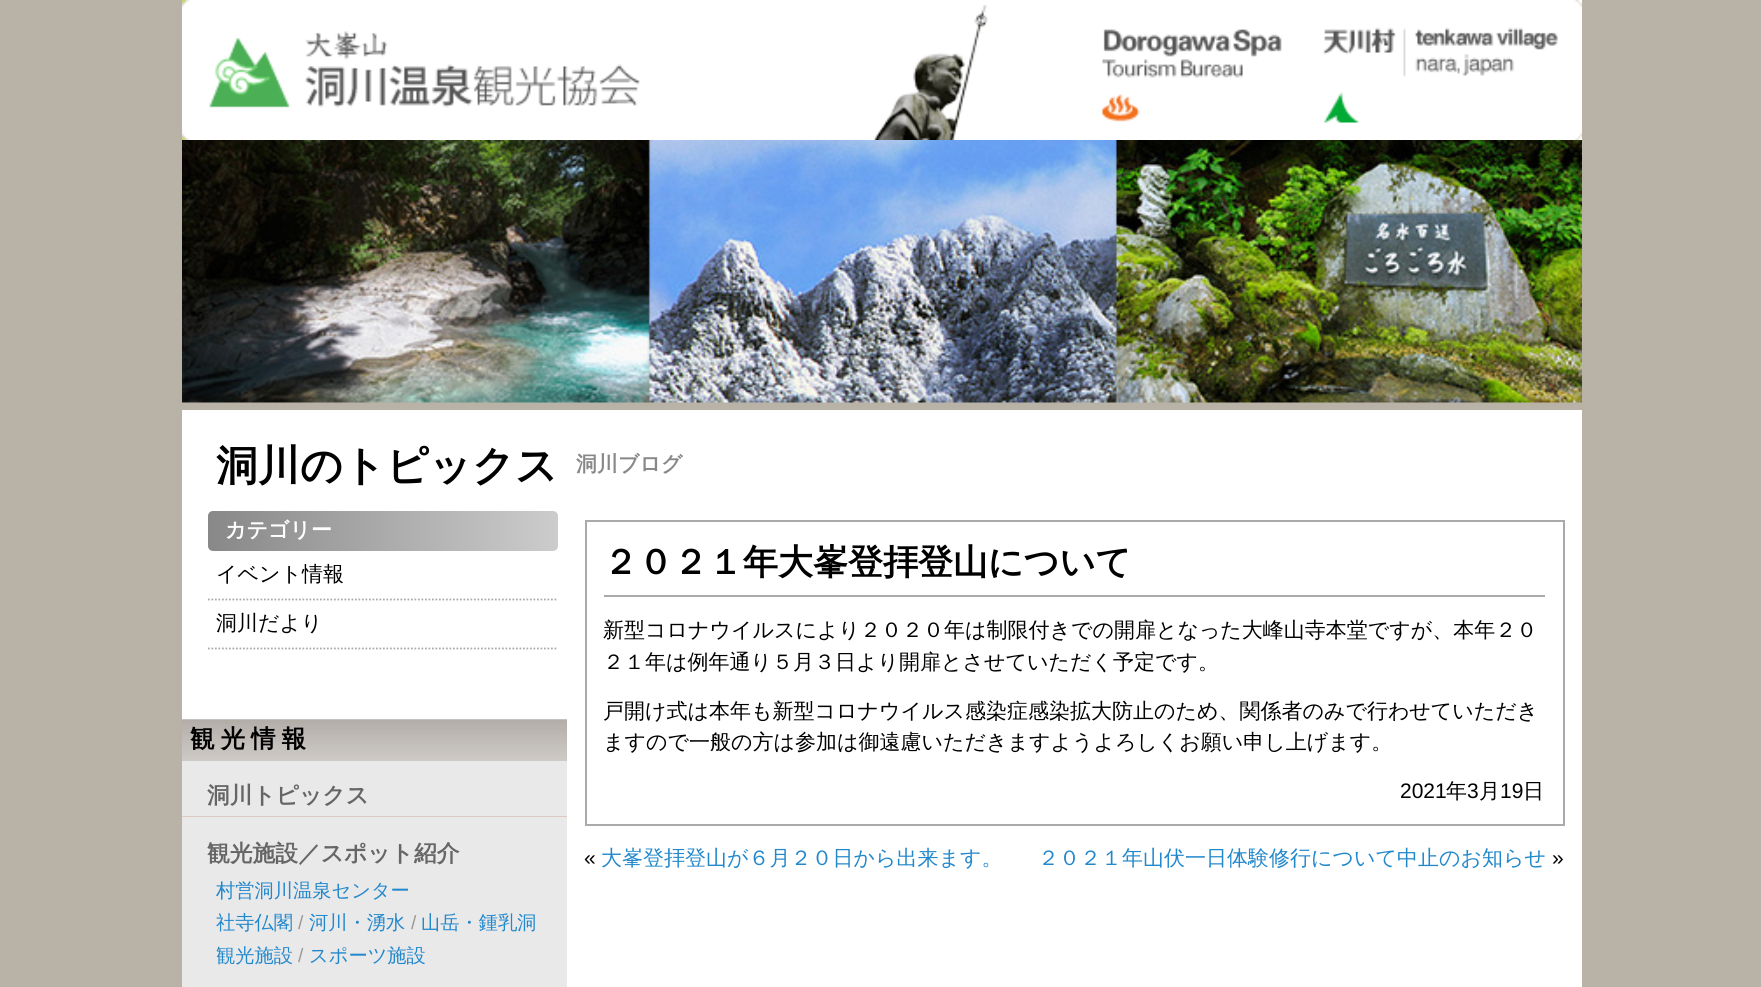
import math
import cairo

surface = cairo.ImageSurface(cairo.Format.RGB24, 1761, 987)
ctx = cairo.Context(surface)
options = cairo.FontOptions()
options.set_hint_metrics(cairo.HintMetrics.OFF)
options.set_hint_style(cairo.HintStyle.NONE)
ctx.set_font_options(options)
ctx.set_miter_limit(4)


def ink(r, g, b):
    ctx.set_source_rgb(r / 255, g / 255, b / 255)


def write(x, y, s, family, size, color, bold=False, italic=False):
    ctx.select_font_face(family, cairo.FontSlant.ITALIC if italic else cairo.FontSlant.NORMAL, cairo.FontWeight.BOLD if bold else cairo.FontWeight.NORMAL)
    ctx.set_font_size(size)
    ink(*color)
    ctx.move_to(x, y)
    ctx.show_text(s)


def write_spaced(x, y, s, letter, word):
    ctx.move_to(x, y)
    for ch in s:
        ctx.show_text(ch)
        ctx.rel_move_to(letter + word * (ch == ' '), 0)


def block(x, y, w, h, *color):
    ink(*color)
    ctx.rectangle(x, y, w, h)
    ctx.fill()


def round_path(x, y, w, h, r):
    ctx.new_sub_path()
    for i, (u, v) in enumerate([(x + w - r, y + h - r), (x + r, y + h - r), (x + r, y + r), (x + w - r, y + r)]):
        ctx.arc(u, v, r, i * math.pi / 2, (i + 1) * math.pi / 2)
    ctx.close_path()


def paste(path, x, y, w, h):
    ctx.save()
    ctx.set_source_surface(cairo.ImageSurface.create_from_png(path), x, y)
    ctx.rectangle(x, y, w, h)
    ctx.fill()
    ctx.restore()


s1 = dict(family="WenQuanYi Zen Hei", size=42, color=(0, 0, 0), bold=True)
s2 = dict(family="WenQuanYi Zen Hei", size=21, color=(136, 136, 136), bold=True)
s3 = dict(family="WenQuanYi Zen Hei", size=21, color=(255, 255, 255), bold=True)
s4 = dict(family="WenQuanYi Zen Hei Medium", size=21, color=(0, 0, 0))
s5 = dict(family="WenQuanYi Zen Hei", size=35, color=(0, 0, 0), bold=True)
s6 = dict(family="Liberation Sans", size=21, color=(0, 0, 0))
s7 = dict(family="WenQuanYi Zen Hei Medium", size=21, color=(34, 136, 204))
s8 = dict(family="WenQuanYi Zen Hei", size=22.75, color=(102, 102, 102), bold=True)
s9 = dict(family="WenQuanYi Zen Hei Medium", size=19.25, color=(34, 136, 204))
s10 = dict(family="Liberation Sans", size=19.25, color=(153, 153, 153))

ink(185, 178, 167)
ctx.paint()
block(182, 0, 1400, 987, 255, 255, 255)
block(182, 0, 4, 140, 198, 213, 128)
paste("pic1.png", 182, 0, 1127, 140)
paste("pic2.png", 1322, 0, 260, 140)
block(182, 402, 1400, 8, 185, 178, 167)
paste("pic3.png", 182, 140, 1400, 263)
write(216, 480, "洞川のトピックス", **s1)
write(576, 471, "洞川ブログ", **s2)
gradient = cairo.LinearGradient(558, 531, 208, 531)
gradient.add_color_stop_rgba(0, 0.8, 0.8, 0.8, 1)
gradient.add_color_stop_rgba(0.5, 0.667, 0.667, 0.667, 1)
gradient.add_color_stop_rgba(1, 0.533, 0.533, 0.533, 1)
ctx.set_source(gradient)
round_path(208, 511, 350, 40, 5)
ctx.fill()
write(225, 537, "カテゴリー", **s3)
ctx.new_path()
ctx.move_to(208, 599.5)
ctx.line_to(558, 599.5)
ink(170, 170, 170)
ctx.set_line_width(1.8)
ctx.set_dash([1.75, 1.75])
ctx.stroke()
write(216, 581, "イベント情報", **s4)
ctx.new_path()
ctx.move_to(208, 648.5)
ctx.line_to(558, 648.5)
ink(170, 170, 170)
ctx.stroke()
write(216, 630, "洞川だより", **s4)
ctx.rectangle(586, 521, 978, 304)
ink(170, 170, 170)
ctx.set_line_width(2)
ctx.set_dash([])
ctx.stroke()
block(604, 595, 941, 2, 170, 170, 170)
write(603, 574, "２０２１年大峯登拝登山について", **s5)
write(603, 637, "新型コロナウイルスにより２０２０年は制限付きでの開扉となった大峰山寺本堂ですが、本年２０", **s4)
write(603, 669, "２１年は例年通り５月３日より開扉とさせていただく予定です。", **s4)
write(603, 718, "戸開け式は本年も新型コロナウイルス感染症感染拡大防止のため、関係者のみで行わせていただき", **s4)
write(603, 749, "ますので一般の方は参加は御遠慮いただきますようよろしくお願い申し上げます。", **s4)
write(1400, 798, "2021", **s6)
write(1446, 798, "年", **s4)
write(1467, 798, "3", **s6)
write(1479, 798, "月", **s4)
write(1500, 798, "19", **s6)
write(1523, 798, "日", **s4)
write(584, 865, "«", **s6)
write(601, 865, "大峯登拝登山が６月２０日から出来ます。", **s7)
write(1038, 865, "２０２１年山伏一日体験修行について中止のお知らせ", **s7)
write(1552, 865, "»", **s6)
paste("pic4.png", 182, 719, 385, 42)
ctx.select_font_face("WenQuanYi Zen Hei", cairo.FontSlant.NORMAL, cairo.FontWeight.BOLD)
ctx.set_font_size(24.5)
write_spaced(190, 747, "観光情報", 6, 0)
block(182, 761, 385, 55, 233, 233, 234)
block(182, 816, 385, 1, 218, 202, 193)
write(207, 803, "洞川トピックス", **s8)
block(182, 817, 385, 170, 233, 233, 234)
write(207, 861, "観光施設／スポット紹介", **s8)
write(216, 897, "村営洞川温泉センター", **s9)
write(216, 929, "社寺仏閣", **s9)
write(298, 929, "/", **s10)
write(309, 929, "河川・湧水", **s9)
write(411, 929, "/", **s10)
write(421, 929, "山岳・鍾乳洞", **s9)
write(216, 962, "観光施設", **s9)
write(298, 962, "/", **s10)
write(309, 962, "スポーツ施設", **s9)
surface.write_to_png("screenshot.png")
